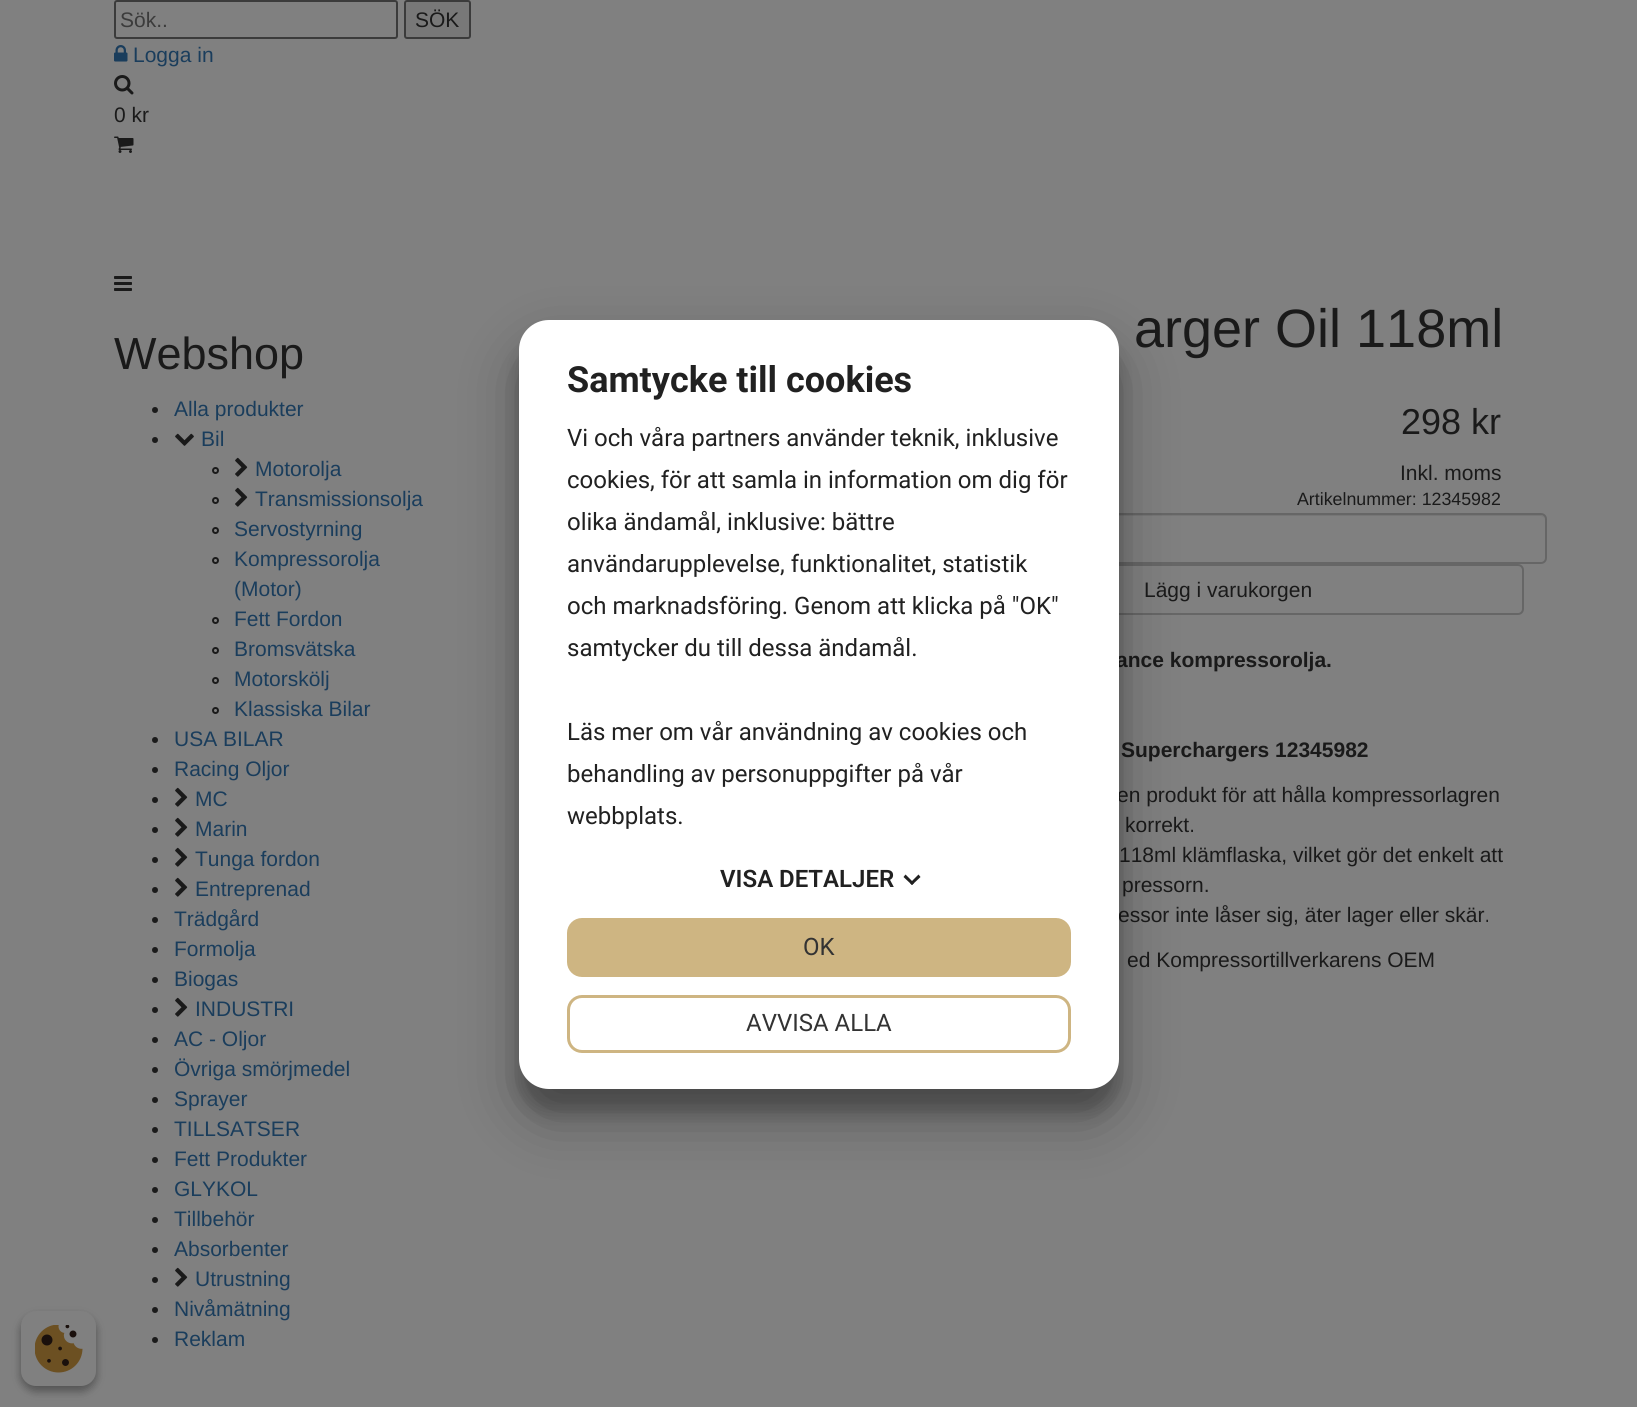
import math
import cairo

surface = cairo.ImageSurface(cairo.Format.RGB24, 1637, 1407)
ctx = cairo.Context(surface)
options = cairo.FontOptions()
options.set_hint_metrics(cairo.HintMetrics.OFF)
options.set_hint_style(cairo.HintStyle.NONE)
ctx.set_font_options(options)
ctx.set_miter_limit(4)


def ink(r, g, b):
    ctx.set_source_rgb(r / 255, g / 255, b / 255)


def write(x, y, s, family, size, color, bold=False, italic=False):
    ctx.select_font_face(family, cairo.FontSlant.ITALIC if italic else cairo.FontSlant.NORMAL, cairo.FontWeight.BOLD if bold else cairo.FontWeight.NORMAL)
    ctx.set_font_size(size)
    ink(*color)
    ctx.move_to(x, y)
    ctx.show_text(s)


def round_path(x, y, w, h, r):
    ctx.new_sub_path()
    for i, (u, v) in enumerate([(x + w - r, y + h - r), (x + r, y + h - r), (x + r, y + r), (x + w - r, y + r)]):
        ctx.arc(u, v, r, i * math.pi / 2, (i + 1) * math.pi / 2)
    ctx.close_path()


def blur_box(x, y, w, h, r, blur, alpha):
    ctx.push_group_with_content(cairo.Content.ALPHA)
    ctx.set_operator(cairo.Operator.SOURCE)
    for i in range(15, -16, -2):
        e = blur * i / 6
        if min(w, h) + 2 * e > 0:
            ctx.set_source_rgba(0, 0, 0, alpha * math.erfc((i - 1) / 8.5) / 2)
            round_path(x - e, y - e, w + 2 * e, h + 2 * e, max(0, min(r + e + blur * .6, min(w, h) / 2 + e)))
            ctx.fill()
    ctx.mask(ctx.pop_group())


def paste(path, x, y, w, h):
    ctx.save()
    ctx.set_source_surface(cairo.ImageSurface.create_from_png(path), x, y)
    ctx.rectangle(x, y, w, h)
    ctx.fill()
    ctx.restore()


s1 = dict(family="Liberation Sans", size=21, color=(59, 59, 59))
s2 = dict(family="Liberation Sans", size=21, color=(26, 26, 26))
s3 = dict(family="Liberation Sans", size=21, color=(26, 61, 92))
s4 = dict(family="Liberation Sans", size=45, color=(26, 26, 26))
s5 = dict(family="Liberation Sans", size=54, color=(26, 26, 26))
s6 = dict(family="Liberation Sans", size=36, color=(26, 26, 26))
s7 = dict(family="Liberation Sans", size=17.8, color=(26, 26, 26))
s8 = dict(family="Liberation Sans", size=21, color=(26, 26, 26), bold=True)
s9 = dict(family="Roboto", size=36, color=(33, 33, 33), bold=True)
s10 = dict(family="Roboto", size=24, color=(33, 33, 33))
s11 = dict(family="Roboto SemiBold", size=24, color=(33, 33, 33))
s12 = dict(family="Roboto", size=24, color=(51, 51, 51))

ink(128, 128, 128)
ctx.paint()
round_path(115, 1, 282, 37, 2)
ink(59, 59, 59)
ctx.stroke()
write(120, 27, "Sök..", **s1)
ink(120, 120, 120)
round_path(405, 1, 65, 37, 2)
ctx.fill_preserve()
ink(59, 59, 59)
ctx.stroke()
write(415, 27, "SÖK", **s2)
paste("pic1.png", 114, 45, 14, 17)
write(133, 62, "Logga in", **s3)
paste("pic2.png", 114, 75, 20, 20)
write(114, 122, "0 kr", **s2)
paste("pic3.png", 114, 136, 20, 17)
paste("pic4.png", 114, 276, 18, 15)
write(114, 369, "Webshop", **s4)
ctx.new_path()
ctx.arc(155, 410, 3, 0, 2 * math.pi)
ctx.fill()
write(174, 416, "Alla produkter", **s3)
ink(26, 26, 26)
ctx.new_path()
ctx.arc(155, 440, 3, 0, 2 * math.pi)
ctx.fill()
paste("pic5.png", 175, 433, 19, 13)
write(201, 446, "Bil", **s3)
ctx.new_path()
ctx.arc(215.5, 470.5, 2.5, 0, 2 * math.pi)
ink(26, 26, 26)
ctx.stroke()
paste("pic6.png", 235, 457, 13, 20)
write(255, 476, "Motorolja", **s3)
ctx.new_path()
ctx.arc(215.5, 500.5, 2.5, 0, 2 * math.pi)
ink(26, 26, 26)
ctx.stroke()
paste("pic6.png", 235, 487, 13, 20)
write(255, 506, "Transmissionsolja", **s3)
ctx.new_path()
ctx.arc(215.5, 530.5, 2.5, 0, 2 * math.pi)
ink(26, 26, 26)
ctx.stroke()
write(234, 536, "Servostyrning", **s3)
ctx.new_path()
ctx.arc(215.5, 560.5, 2.5, 0, 2 * math.pi)
ink(26, 26, 26)
ctx.stroke()
write(234, 566, "Kompressorolja", **s3)
write(234, 596, "(Motor)", **s3)
ctx.new_path()
ctx.arc(215.5, 620.5, 2.5, 0, 2 * math.pi)
ink(26, 26, 26)
ctx.stroke()
write(234, 626, "Fett Fordon", **s3)
ctx.new_path()
ctx.arc(215.5, 650.5, 2.5, 0, 2 * math.pi)
ink(26, 26, 26)
ctx.stroke()
write(234, 656, "Bromsvätska", **s3)
ctx.new_path()
ctx.arc(215.5, 680.5, 2.5, 0, 2 * math.pi)
ink(26, 26, 26)
ctx.stroke()
write(234, 686, "Motorskölj", **s3)
ctx.new_path()
ctx.arc(215.5, 710.5, 2.5, 0, 2 * math.pi)
ink(26, 26, 26)
ctx.stroke()
write(234, 716, "Klassiska Bilar", **s3)
ink(26, 26, 26)
ctx.new_path()
ctx.arc(155, 740, 3, 0, 2 * math.pi)
ctx.fill()
write(174, 746, "USA BILAR", **s3)
ink(26, 26, 26)
ctx.new_path()
ctx.arc(155, 770, 3, 0, 2 * math.pi)
ctx.fill()
write(174, 776, "Racing Oljor", **s3)
ink(26, 26, 26)
ctx.new_path()
ctx.arc(155, 800, 3, 0, 2 * math.pi)
ctx.fill()
paste("pic6.png", 175, 787, 13, 20)
write(195, 806, "MC", **s3)
ink(26, 26, 26)
ctx.new_path()
ctx.arc(155, 830, 3, 0, 2 * math.pi)
ctx.fill()
paste("pic6.png", 175, 817, 13, 20)
write(195, 836, "Marin", **s3)
ink(26, 26, 26)
ctx.new_path()
ctx.arc(155, 860, 3, 0, 2 * math.pi)
ctx.fill()
paste("pic6.png", 175, 847, 13, 20)
write(195, 866, "Tunga fordon", **s3)
ink(26, 26, 26)
ctx.new_path()
ctx.arc(155, 890, 3, 0, 2 * math.pi)
ctx.fill()
paste("pic6.png", 175, 877, 13, 20)
write(195, 896, "Entreprenad", **s3)
ink(26, 26, 26)
ctx.new_path()
ctx.arc(155, 920, 3, 0, 2 * math.pi)
ctx.fill()
write(174, 926, "Trädgård", **s3)
ink(26, 26, 26)
ctx.new_path()
ctx.arc(155, 950, 3, 0, 2 * math.pi)
ctx.fill()
write(174, 956, "Formolja", **s3)
ink(26, 26, 26)
ctx.new_path()
ctx.arc(155, 980, 3, 0, 2 * math.pi)
ctx.fill()
write(174, 986, "Biogas", **s3)
ink(26, 26, 26)
ctx.new_path()
ctx.arc(155, 1010, 3, 0, 2 * math.pi)
ctx.fill()
paste("pic6.png", 175, 997, 13, 20)
write(195, 1016, "INDUSTRI", **s3)
ink(26, 26, 26)
ctx.new_path()
ctx.arc(155, 1040, 3, 0, 2 * math.pi)
ctx.fill()
write(174, 1046, "AC - Oljor", **s3)
ink(26, 26, 26)
ctx.new_path()
ctx.arc(155, 1070, 3, 0, 2 * math.pi)
ctx.fill()
write(174, 1076, "Övriga smörjmedel", **s3)
ink(26, 26, 26)
ctx.new_path()
ctx.arc(155, 1100, 3, 0, 2 * math.pi)
ctx.fill()
write(174, 1106, "Sprayer", **s3)
ink(26, 26, 26)
ctx.new_path()
ctx.arc(155, 1130, 3, 0, 2 * math.pi)
ctx.fill()
write(174, 1136, "TILLSATSER", **s3)
ink(26, 26, 26)
ctx.new_path()
ctx.arc(155, 1160, 3, 0, 2 * math.pi)
ctx.fill()
write(174, 1166, "Fett Produkter", **s3)
ink(26, 26, 26)
ctx.new_path()
ctx.arc(155, 1190, 3, 0, 2 * math.pi)
ctx.fill()
write(174, 1196, "GLYKOL", **s3)
ink(26, 26, 26)
ctx.new_path()
ctx.arc(155, 1220, 3, 0, 2 * math.pi)
ctx.fill()
write(174, 1226, "Tillbehör", **s3)
ink(26, 26, 26)
ctx.new_path()
ctx.arc(155, 1250, 3, 0, 2 * math.pi)
ctx.fill()
write(174, 1256, "Absorbenter", **s3)
ink(26, 26, 26)
ctx.new_path()
ctx.arc(155, 1280, 3, 0, 2 * math.pi)
ctx.fill()
paste("pic6.png", 175, 1267, 13, 20)
write(195, 1286, "Utrustning", **s3)
ink(26, 26, 26)
ctx.new_path()
ctx.arc(155, 1310, 3, 0, 2 * math.pi)
ctx.fill()
write(174, 1316, "Nivåmätning", **s3)
ink(26, 26, 26)
ctx.new_path()
ctx.arc(155, 1340, 3, 0, 2 * math.pi)
ctx.fill()
write(174, 1346, "Reklam", **s3)
write(1134, 347, "arger Oil 118ml", **s5)
write(1401, 434, "298 kr", **s6)
write(1400, 480, "Inkl. moms", **s2)
write(1297, 505, "Artikelnummer: 12345982", **s7)
ink(118, 118, 118)
ctx.new_path()
ctx.move_to(916, 516)
ctx.line_to(1540, 516)
ctx.curve_to(1543, 516, 1545, 518, 1545, 520)
ctx.curve_to(1545, 517, 1543, 515, 1540, 515)
ctx.line_to(917, 515)
ctx.curve_to(914, 515, 912, 517, 912, 520)
ctx.curve_to(912, 518, 914, 516, 916, 516)
ctx.close_path()
ctx.fill()
round_path(912, 514, 634, 49, 5)
ink(102, 102, 102)
ctx.stroke()
round_path(934, 565, 589, 49, 5)
ctx.stroke()
write(1144, 597, "Lägg i varukorgen", **s2)
write(1116, 667, "ance kompressorolja.", **s8)
write(1121, 757, "Superchargers 12345982", **s8)
write(1117, 802, "en produkt för att hålla kompressorlagren", **s2)
write(1125, 832, "korrekt.", **s2)
write(1119, 862, "118ml klämflaska, vilket gör det enkelt att", **s2)
write(1122, 892, "pressorn.", **s2)
write(1118, 922, "essor inte låser sig, äter lager eller skär.", **s2)
write(1127, 967, "ed Kompressortillverkarens OEM", **s2)
ink(0, 0, 0)
blur_box(519, 342, 600, 770, 30, 9, 0.22)
blur_box(519, 348, 600, 770, 30, 28.5, 0.3)
ink(255, 255, 255)
round_path(519, 320, 600, 769, 30)
ctx.fill()
write(567, 392, "Samtycke till cookies", **s9)
write(567, 446, "Vi och våra partners använder teknik, inklusive", **s10)
write(567, 488, "cookies, för att samla in information om dig för", **s10)
write(567, 530, "olika ändamål, inklusive: bättre", **s10)
write(567, 572, "användarupplevelse, funktionalitet, statistik", **s10)
write(567, 614, "och marknadsföring. Genom att klicka på \"OK\"", **s10)
write(567, 656, "samtycker du till dessa ändamål.", **s10)
write(567, 740, "Läs mer om vår användning av cookies och", **s10)
write(567, 782, "behandling av personuppgifter på vår", **s10)
write(567, 824, "webbplats.", **s10)
write(720, 887, "VISA DETALJER", **s11)
ctx.new_path()
ctx.move_to(918.5, 874.5)
ctx.line_to(920.5, 877)
ctx.line_to(912, 885)
ctx.line_to(910, 883)
ctx.close_path()
ctx.fill()
ctx.new_path()
ctx.move_to(905.5, 874.5)
ctx.line_to(914, 883)
ctx.line_to(912, 885)
ctx.line_to(903.5, 877)
ctx.close_path()
ctx.fill()
ink(206, 181, 130)
round_path(568.5, 919.5, 501, 56, 13.5)
ctx.fill_preserve()
ctx.set_line_width(3)
ctx.stroke()
write(803, 955, "OK", **s12)
round_path(568.5, 996.5, 501, 55, 13.5)
ink(206, 181, 130)
ctx.stroke()
write(746, 1031, "AVVISA ALLA", **s12)
ink(0, 0, 0)
blur_box(21, 1316, 75, 75, 15, 4.5, 0.23)
blur_box(21, 1316, 75, 75, 15, 4.5, 0.16)
ink(128, 128, 128)
round_path(21, 1311, 75, 75, 15)
ctx.fill()
paste("pic7.png", 35, 1325, 48, 48)
surface.write_to_png("screenshot.png")
